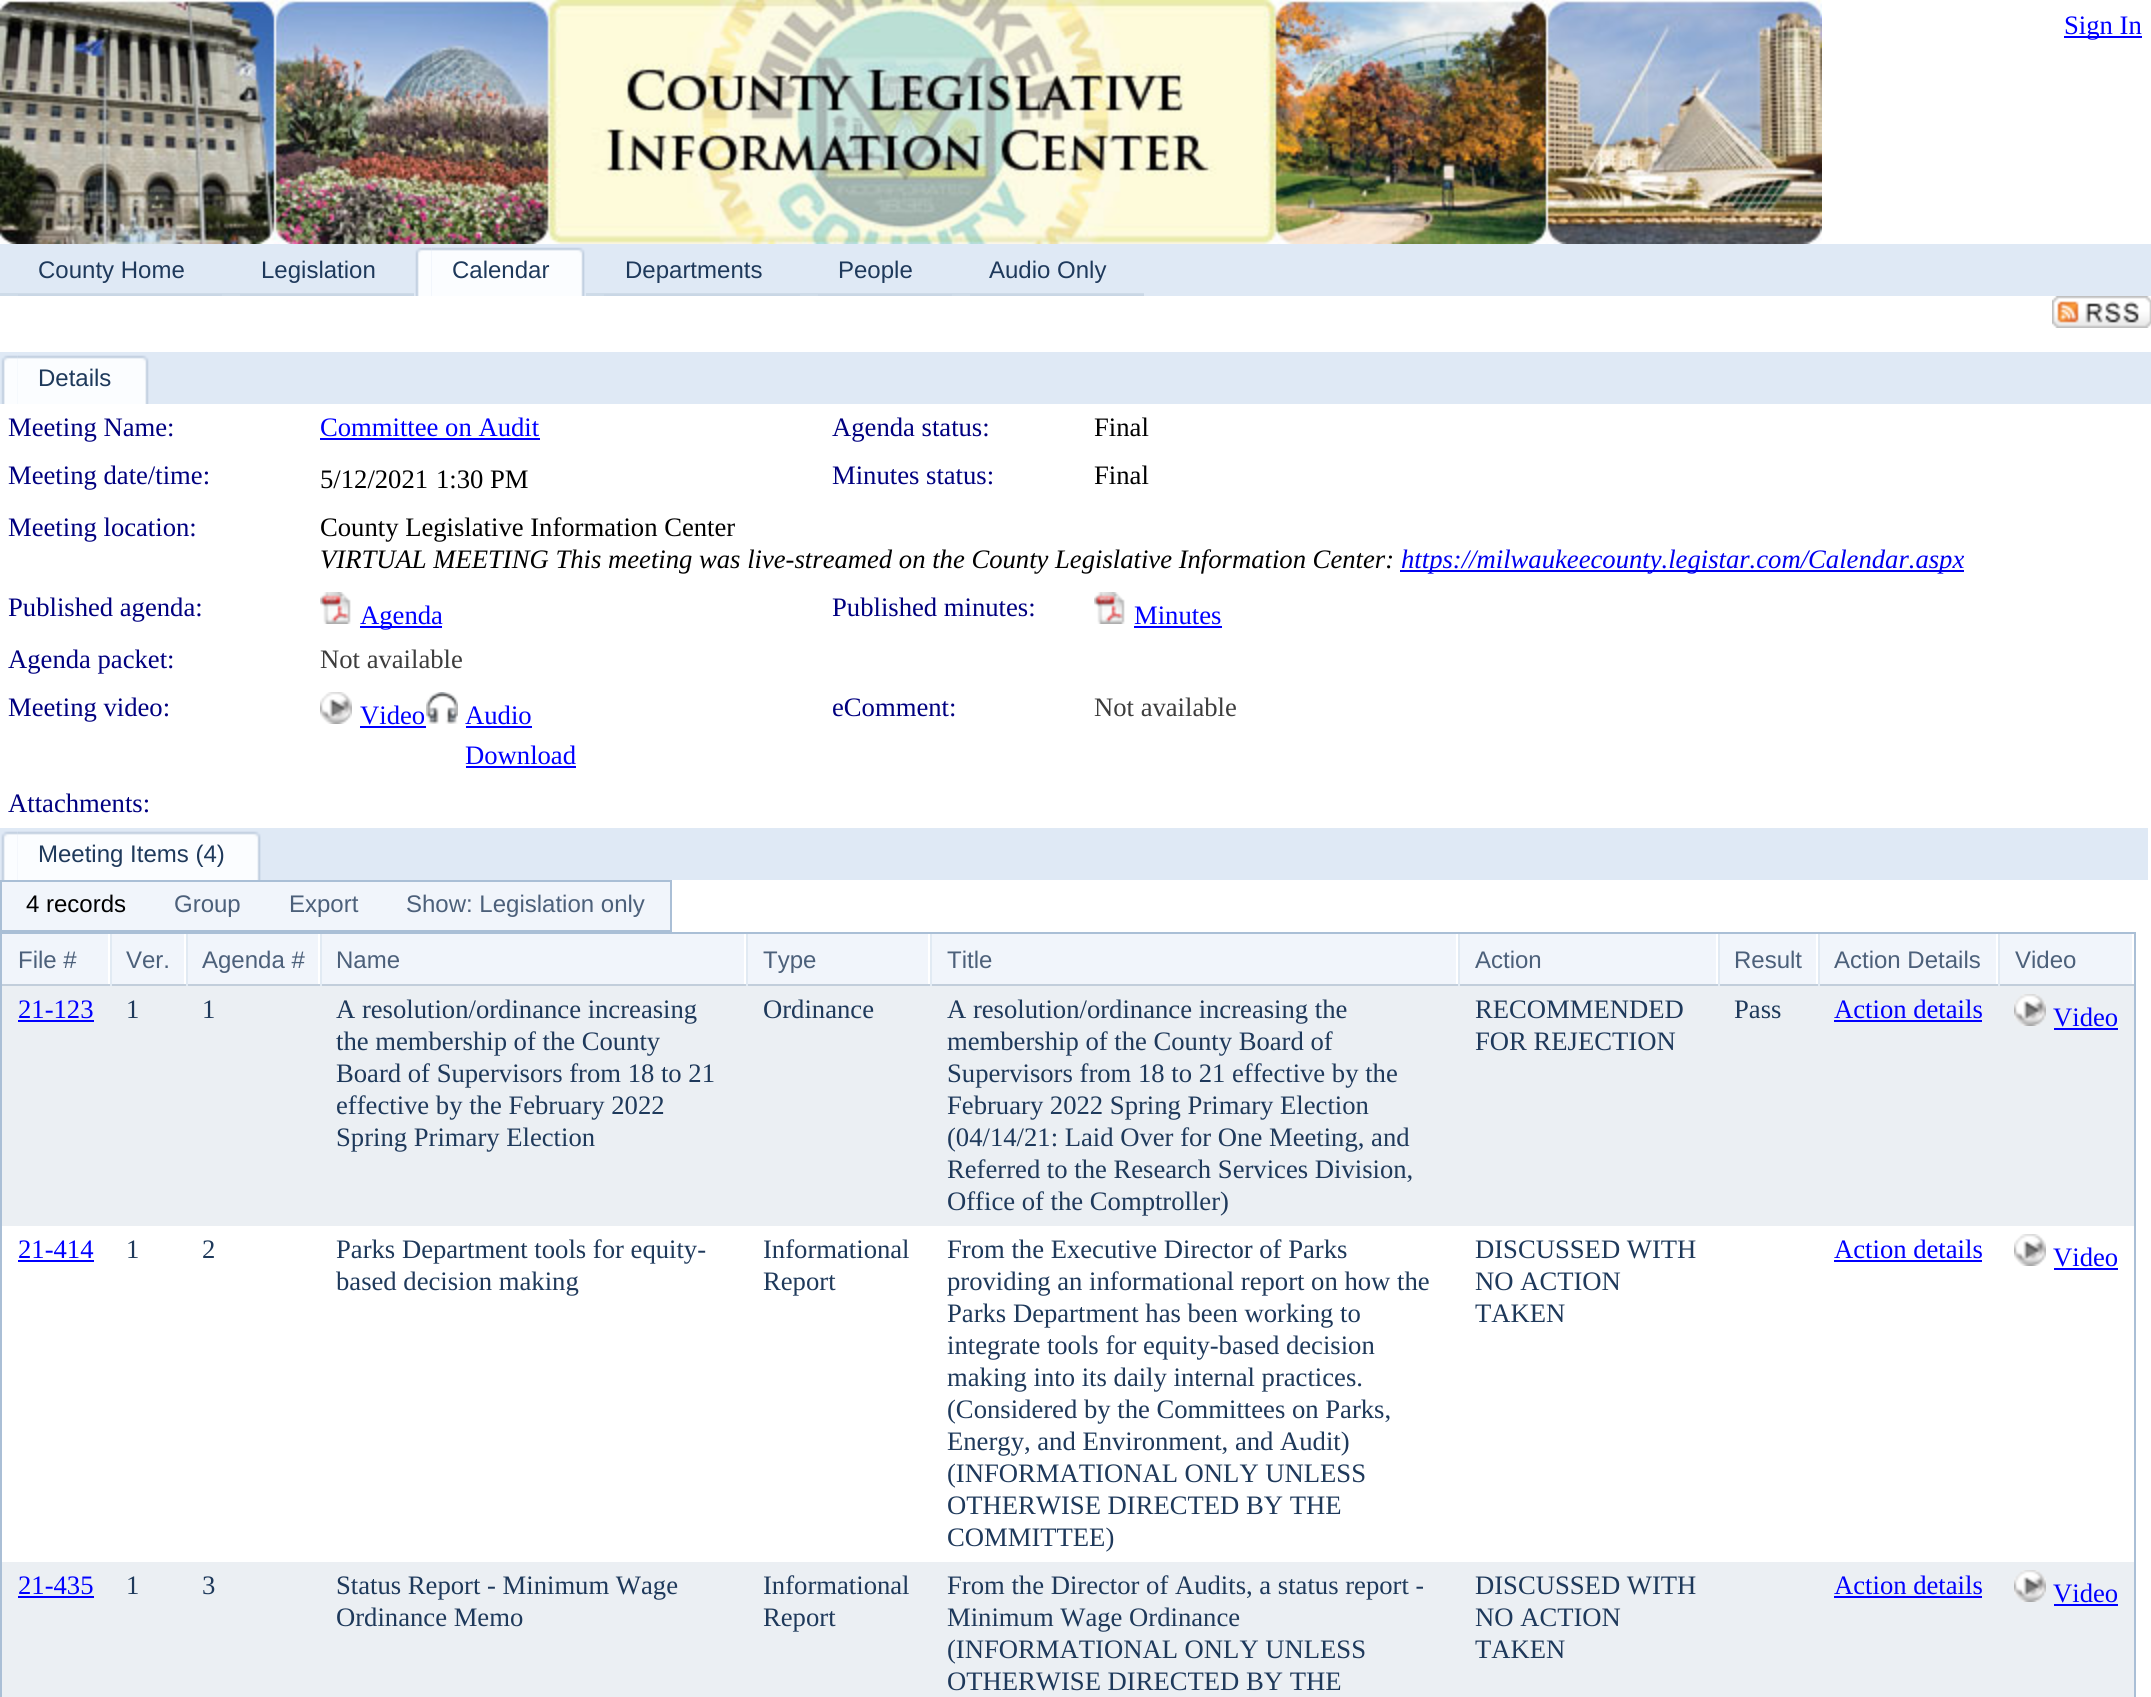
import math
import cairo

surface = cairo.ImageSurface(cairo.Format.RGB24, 2151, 1697)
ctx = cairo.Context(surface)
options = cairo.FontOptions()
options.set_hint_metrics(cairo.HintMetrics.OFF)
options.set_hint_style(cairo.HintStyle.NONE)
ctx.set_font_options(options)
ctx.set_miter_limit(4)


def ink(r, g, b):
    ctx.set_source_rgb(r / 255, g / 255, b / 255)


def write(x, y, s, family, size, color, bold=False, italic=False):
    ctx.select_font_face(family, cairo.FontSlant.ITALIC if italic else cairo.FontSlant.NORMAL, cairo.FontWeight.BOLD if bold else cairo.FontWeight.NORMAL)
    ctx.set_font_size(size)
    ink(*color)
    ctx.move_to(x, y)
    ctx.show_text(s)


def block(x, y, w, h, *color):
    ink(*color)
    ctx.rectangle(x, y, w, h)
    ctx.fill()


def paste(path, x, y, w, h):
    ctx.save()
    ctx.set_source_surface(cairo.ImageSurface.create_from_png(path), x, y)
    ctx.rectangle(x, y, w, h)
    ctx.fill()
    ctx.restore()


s1 = dict(family="Liberation Serif", size=26.65, color=(0, 0, 255))
s2 = dict(family="Liberation Sans", size=24, color=(30, 57, 91))
s3 = dict(family="Liberation Serif", size=26.65, color=(0, 0, 128))
s4 = dict(family="Liberation Serif", size=26.65, color=(0, 0, 0))
s5 = dict(family="Liberation Serif", size=26.65, color=(0, 0, 0), italic=True)
s6 = dict(family="Liberation Serif", size=26.65, color=(0, 0, 238), italic=True)
s7 = dict(family="Liberation Serif", size=26.65, color=(61, 61, 61))
s8 = dict(family="Liberation Sans", size=24, color=(0, 0, 0))
s9 = dict(family="Liberation Sans", size=24, color=(76, 96, 122))
s10 = dict(family="Liberation Serif", size=26.65, color=(30, 57, 91))

ink(255, 255, 255)
ctx.paint()
paste("pic1.png", 0, 0, 1822, 244)
block(2064, 36, 78, 2, 0, 0, 255)
write(2064, 34, "Sign In", **s1)
block(0, 244, 2151, 52, 223, 233, 245)
block(0, 293, 414, 3, 206, 219, 232)
paste("pic2.png", 18, 294, 204, 2)
write(38, 278, "County Home", **s2)
paste("pic3.png", 240, 294, 174, 2)
write(261, 278, "Legislation", **s2)
paste("pic4.png", 415, 247, 18, 49)
paste("pic5.png", 432, 247, 153, 49)
write(452, 278, "Calendar", **s2)
block(586, 293, 558, 3, 206, 219, 232)
paste("pic6.png", 604, 294, 196, 2)
write(625, 278, "Departments", **s2)
paste("pic7.png", 818, 294, 134, 2)
write(838, 278, "People", **s2)
paste("pic3.png", 970, 294, 174, 2)
write(989, 278, "Audio Only", **s2)
paste("pic8.png", 2052, 296, 99, 32)
block(0, 352, 2151, 52, 223, 233, 245)
paste("pic9.png", 1, 355, 18, 49)
paste("pic10.png", 18, 355, 131, 49)
write(38, 386, "Details", **s2)
write(8, 436, "Meeting Name:", **s3)
write(320, 436, "Committee on Audit", **s1)
block(320, 438, 220, 2, 0, 0, 255)
write(832, 436, "Agenda status:", **s3)
write(1094, 436, "Final", **s4)
write(8, 484, "Meeting date/time:", **s3)
write(320, 488, "5/12/2021", **s4)
write(436, 488, "1:30 PM", **s4)
write(832, 484, "Minutes status:", **s3)
write(1094, 484, "Final", **s4)
write(8, 536, "Meeting location:", **s3)
write(320, 536, "County Legislative Information Center", **s4)
write(320, 568, "VIRTUAL MEETING This meeting was live-streamed on the County Legislative Information Center:", **s5)
block(1400, 570, 564, 2, 0, 0, 238)
write(1401, 568, "https://milwaukeecounty.legistar.com/Calendar.aspx", **s6)
write(8, 616, "Published agenda:", **s3)
paste("pic11.png", 320, 592, 31, 32)
block(360, 626, 82, 2, 0, 0, 255)
write(360, 624, "Agenda", **s1)
write(832, 616, "Published minutes:", **s3)
paste("pic11.png", 1094, 592, 31, 32)
write(1134, 624, "Minutes", **s1)
block(1134, 626, 88, 2, 0, 0, 255)
write(8, 668, "Agenda packet:", **s3)
write(320, 668, "Not available", **s7)
write(8, 716, "Meeting video:", **s3)
paste("pic12.png", 320, 692, 32, 32)
write(360, 724, "Video", **s1)
block(360, 726, 66, 2, 0, 0, 255)
paste("pic13.png", 426, 692, 32, 32)
write(465, 724, "Audio", **s1)
block(466, 726, 66, 2, 0, 0, 255)
write(465, 764, "Download", **s1)
block(466, 766, 110, 2, 0, 0, 255)
write(832, 716, "eComment:", **s3)
write(1094, 716, "Not available", **s7)
write(8, 812, "Attachments:", **s3)
block(0, 828, 2148, 52, 223, 233, 245)
paste("pic14.png", 1, 831, 18, 49)
paste("pic15.png", 18, 831, 243, 49)
write(38, 862, "Meeting Items (4)", **s2)
ink(241, 245, 251)
ctx.rectangle(1, 881, 670, 50)
ctx.fill_preserve()
ink(170, 191, 214)
ctx.stroke()
write(26, 912, "4 records", **s8)
write(174, 912, "Group", **s9)
write(289, 912, "Export", **s9)
write(406, 912, "Show: Legislation only", **s9)
ctx.rectangle(1, 933, 2134, 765)
ink(170, 191, 214)
ctx.stroke()
block(2, 934, 106, 50, 241, 245, 251)
block(2, 984, 2132, 2, 194, 206, 219)
write(18, 968, "File #", **s9)
block(112, 934, 72, 50, 241, 245, 251)
block(110, 934, 2, 52, 225, 234, 243)
write(126, 968, "Ver.", **s9)
block(188, 934, 130, 50, 241, 245, 251)
block(186, 934, 2, 52, 225, 234, 243)
write(202, 968, "Agenda #", **s9)
block(322, 934, 422, 50, 241, 245, 251)
block(320, 934, 2, 52, 225, 234, 243)
write(336, 968, "Name", **s9)
block(748, 934, 180, 50, 241, 245, 251)
block(746, 934, 2, 52, 225, 234, 243)
write(763, 968, "Type", **s9)
block(932, 934, 524, 50, 241, 245, 251)
block(930, 934, 2, 52, 225, 234, 243)
write(947, 968, "Title", **s9)
block(1460, 934, 256, 50, 241, 245, 251)
block(1458, 934, 2, 52, 225, 234, 243)
write(1475, 968, "Action", **s9)
block(1720, 934, 96, 50, 241, 245, 251)
block(1718, 934, 2, 52, 225, 234, 243)
write(1734, 968, "Result", **s9)
block(1820, 934, 176, 50, 241, 245, 251)
block(1818, 934, 2, 52, 225, 234, 243)
write(1834, 968, "Action Details", **s9)
block(2000, 934, 132, 50, 241, 245, 251)
block(1998, 934, 2, 52, 225, 234, 243)
write(2015, 968, "Video", **s9)
block(2, 986, 2132, 240, 235, 239, 243)
write(18, 1018, "21-123", **s1)
block(18, 1020, 76, 2, 0, 0, 255)
write(126, 1018, "1", **s10)
write(202, 1018, "1", **s10)
write(336, 1018, "A resolution/ordinance increasing", **s10)
write(336, 1050, "the membership of the County", **s10)
write(336, 1082, "Board of Supervisors from 18 to 21", **s10)
write(336, 1114, "effective by the February 2022", **s10)
write(336, 1146, "Spring Primary Election", **s10)
write(763, 1018, "Ordinance", **s10)
write(947, 1018, "A resolution/ordinance increasing the", **s10)
write(947, 1050, "membership of the County Board of", **s10)
write(947, 1082, "Supervisors from 18 to 21 effective by the", **s10)
write(947, 1114, "February 2022 Spring Primary Election", **s10)
write(947, 1146, "(04/14/21: Laid Over for One Meeting, and", **s10)
write(947, 1178, "Referred to the Research Services Division,", **s10)
write(947, 1210, "Office of the Comptroller)", **s10)
write(1475, 1018, "RECOMMENDED", **s10)
write(1475, 1050, "FOR REJECTION", **s10)
write(1734, 1018, "Pass", **s10)
write(1834, 1018, "Action details", **s1)
block(1834, 1020, 148, 2, 0, 0, 255)
paste("pic16.png", 2014, 994, 32, 32)
write(2053, 1026, "Video", **s1)
block(2054, 1028, 64, 2, 0, 0, 255)
write(18, 1258, "21-414", **s1)
block(18, 1260, 76, 2, 0, 0, 255)
write(126, 1258, "1", **s10)
write(202, 1258, "2", **s10)
write(336, 1258, "Parks Department tools for equity-", **s10)
write(336, 1290, "based decision making", **s10)
write(763, 1258, "Informational", **s10)
write(763, 1290, "Report", **s10)
write(947, 1258, "From the Executive Director of Parks", **s10)
write(947, 1290, "providing an informational report on how the", **s10)
write(947, 1322, "Parks Department has been working to", **s10)
write(947, 1354, "integrate tools for equity-based decision", **s10)
write(947, 1386, "making into its daily internal practices.", **s10)
write(947, 1418, "(Considered by the Committees on Parks,", **s10)
write(947, 1450, "Energy, and Environment, and Audit)", **s10)
write(947, 1482, "(INFORMATIONAL ONLY UNLESS", **s10)
write(947, 1514, "OTHERWISE DIRECTED BY THE", **s10)
write(947, 1546, "COMMITTEE)", **s10)
write(1475, 1258, "DISCUSSED WITH", **s10)
write(1475, 1290, "NO ACTION", **s10)
write(1475, 1322, "TAKEN", **s10)
write(1834, 1258, "Action details", **s1)
block(1834, 1260, 148, 2, 0, 0, 255)
paste("pic12.png", 2014, 1234, 32, 32)
write(2053, 1266, "Video", **s1)
block(2054, 1268, 64, 2, 0, 0, 255)
block(2, 1562, 2132, 135, 235, 239, 243)
write(18, 1594, "21-435", **s1)
block(18, 1596, 76, 2, 0, 0, 255)
write(126, 1594, "1", **s10)
write(202, 1594, "3", **s10)
write(336, 1594, "Status Report - Minimum Wage", **s10)
write(336, 1626, "Ordinance Memo", **s10)
write(763, 1594, "Informational", **s10)
write(763, 1626, "Report", **s10)
write(947, 1594, "From the Director of Audits, a status report -", **s10)
write(947, 1626, "Minimum Wage Ordinance", **s10)
write(947, 1658, "(INFORMATIONAL ONLY UNLESS", **s10)
write(947, 1690, "OTHERWISE DIRECTED BY THE", **s10)
write(1475, 1594, "DISCUSSED WITH", **s10)
write(1475, 1626, "NO ACTION", **s10)
write(1475, 1658, "TAKEN", **s10)
write(1834, 1594, "Action details", **s1)
block(1834, 1596, 148, 2, 0, 0, 255)
paste("pic16.png", 2014, 1570, 32, 32)
write(2053, 1602, "Video", **s1)
block(2054, 1604, 64, 2, 0, 0, 255)
surface.write_to_png("screenshot.png")
